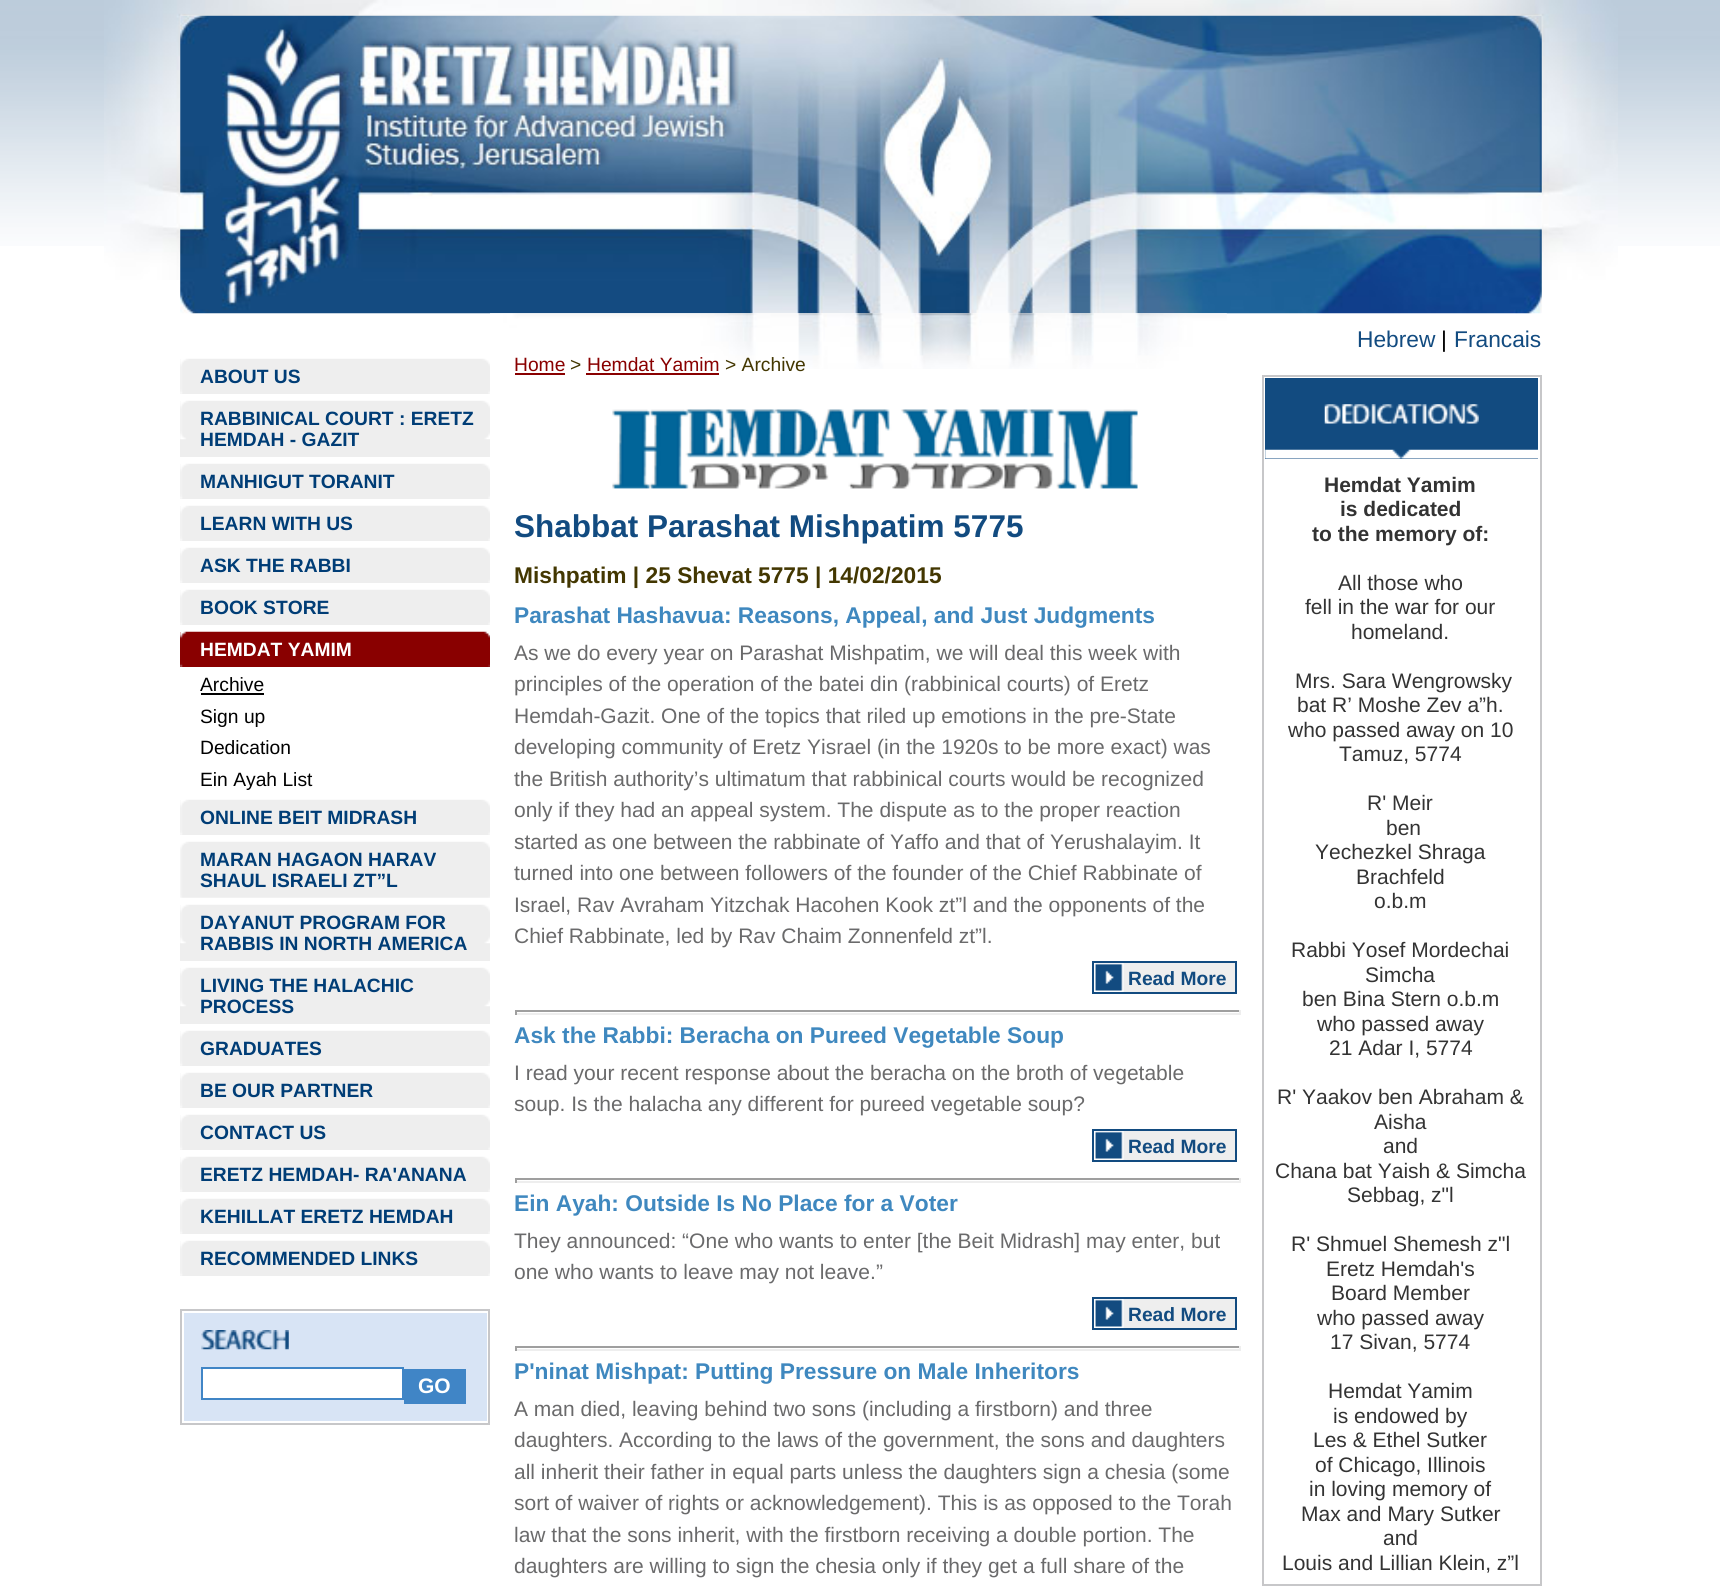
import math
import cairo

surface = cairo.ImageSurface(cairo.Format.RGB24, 1720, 1587)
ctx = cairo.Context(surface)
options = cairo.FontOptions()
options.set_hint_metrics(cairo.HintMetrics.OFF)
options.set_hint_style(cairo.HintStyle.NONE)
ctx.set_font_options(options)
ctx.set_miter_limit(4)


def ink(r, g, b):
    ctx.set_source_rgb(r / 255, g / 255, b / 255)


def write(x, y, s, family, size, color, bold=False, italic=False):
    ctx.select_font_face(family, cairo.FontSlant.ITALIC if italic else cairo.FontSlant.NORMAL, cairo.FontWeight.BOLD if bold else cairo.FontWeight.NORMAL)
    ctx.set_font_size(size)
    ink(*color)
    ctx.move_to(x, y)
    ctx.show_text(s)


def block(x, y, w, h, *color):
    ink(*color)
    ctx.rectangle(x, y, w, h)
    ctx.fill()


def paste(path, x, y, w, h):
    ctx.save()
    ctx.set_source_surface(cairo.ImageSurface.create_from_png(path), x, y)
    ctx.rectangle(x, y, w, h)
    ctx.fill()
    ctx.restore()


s1 = dict(family="Liberation Sans", size=22.75, color=(18, 75, 128))
s2 = dict(family="Liberation Sans", size=22.75, color=(0, 0, 0))
s3 = dict(family="Liberation Sans", size=19.25, color=(0, 61, 118), bold=True)
s4 = dict(family="Liberation Sans", size=19.25, color=(255, 255, 255), bold=True)
s5 = dict(family="Liberation Sans", size=19.25, color=(0, 0, 0))
s6 = dict(family="Liberation Sans", size=21, color=(255, 255, 255), bold=True)
s7 = dict(family="Liberation Sans", size=19.25, color=(137, 0, 0))
s8 = dict(family="Liberation Sans", size=19.25, color=(67, 55, 1))
s9 = dict(family="Liberation Sans", size=31.5, color=(18, 75, 128), bold=True)
s10 = dict(family="Liberation Sans", size=22.75, color=(67, 55, 1), bold=True)
s11 = dict(family="Liberation Sans", size=22.75, color=(63, 136, 191), bold=True)
s12 = dict(family="Liberation Sans", size=21, color=(106, 106, 107))
s13 = dict(family="Liberation Sans", size=19.25, color=(18, 75, 128), bold=True)
s14 = dict(family="Liberation Sans", size=21, color=(51, 51, 51), bold=True)
s15 = dict(family="Liberation Sans", size=21, color=(51, 51, 51))

ink(255, 255, 255)
ctx.paint()
paste("pic1.png", 0, 0, 1720, 246)
paste("pic2.png", 104, 0, 1514, 280)
write(1357, 347, "Hebrew", **s1)
write(1441, 347, "|", **s2)
write(1454, 347, "Francais", **s1)
paste("pic3.png", 180, 15, 1362, 299)
block(180, 359, 310, 35, 238, 238, 238)
paste("pic4.png", 180, 358, 310, 36)
write(200, 383, "ABOUT US", **s3)
block(180, 401, 310, 56, 238, 238, 238)
paste("pic5.png", 180, 400, 310, 40)
write(200, 425, "RABBINICAL COURT : ERETZ", **s3)
write(200, 446, "HEMDAH - GAZIT", **s3)
block(180, 464, 310, 35, 238, 238, 238)
paste("pic4.png", 180, 463, 310, 36)
write(200, 488, "MANHIGUT TORANIT", **s3)
block(180, 506, 310, 35, 238, 238, 238)
paste("pic4.png", 180, 505, 310, 36)
write(200, 530, "LEARN WITH US", **s3)
block(180, 548, 310, 35, 238, 238, 238)
paste("pic4.png", 180, 547, 310, 36)
write(200, 572, "ASK THE RABBI", **s3)
block(180, 590, 310, 35, 238, 238, 238)
paste("pic4.png", 180, 589, 310, 36)
write(200, 614, "BOOK STORE", **s3)
block(180, 632, 310, 35, 137, 0, 0)
paste("pic6.png", 180, 631, 310, 36)
write(200, 656, "HEMDAT YAMIM", **s4)
write(200, 691, "Archive", **s5)
block(201, 693, 63, 2, 0, 0, 0)
write(200, 723, "Sign up", **s5)
write(200, 754, "Dedication", **s5)
write(200, 786, "Ein Ayah List", **s5)
block(180, 800, 310, 35, 238, 238, 238)
paste("pic4.png", 180, 799, 310, 36)
write(200, 824, "ONLINE BEIT MIDRASH", **s3)
paste("pic7.png", 180, 841, 310, 57)
write(200, 866, "MARAN HAGAON HARAV", **s3)
write(200, 887, "SHAUL ISRAELI ZT”L", **s3)
block(180, 905, 310, 56, 238, 238, 238)
paste("pic5.png", 180, 904, 310, 40)
write(200, 929, "DAYANUT PROGRAM FOR", **s3)
write(200, 950, "RABBIS IN NORTH AMERICA", **s3)
block(180, 968, 310, 56, 238, 238, 238)
paste("pic5.png", 180, 967, 310, 40)
write(200, 992, "LIVING THE HALACHIC", **s3)
write(200, 1013, "PROCESS", **s3)
block(180, 1031, 310, 35, 238, 238, 238)
paste("pic4.png", 180, 1030, 310, 36)
write(200, 1055, "GRADUATES", **s3)
block(180, 1073, 310, 35, 238, 238, 238)
paste("pic4.png", 180, 1072, 310, 36)
write(200, 1097, "BE OUR PARTNER", **s3)
block(180, 1115, 310, 35, 238, 238, 238)
paste("pic4.png", 180, 1114, 310, 36)
write(200, 1139, "CONTACT US", **s3)
block(180, 1157, 310, 35, 238, 238, 238)
paste("pic4.png", 180, 1156, 310, 36)
write(200, 1181, "ERETZ HEMDAH- RA'ANANA", **s3)
block(180, 1199, 310, 35, 238, 238, 238)
paste("pic4.png", 180, 1198, 310, 36)
write(200, 1223, "KEHILLAT ERETZ HEMDAH", **s3)
block(180, 1241, 310, 35, 238, 238, 238)
paste("pic4.png", 180, 1240, 310, 36)
write(200, 1265, "RECOMMENDED LINKS", **s3)
ctx.rectangle(181, 1310, 308, 114)
ink(199, 199, 201)
ctx.stroke()
block(184, 1313, 303, 108, 216, 228, 245)
paste("pic8.png", 201, 1330, 88, 20)
ink(255, 255, 255)
ctx.rectangle(202, 1368, 201, 31)
ctx.fill_preserve()
ink(64, 133, 198)
ctx.stroke()
block(404, 1369, 62, 35, 64, 133, 198)
write(418, 1393, "GO", **s6)
paste("pic9.png", 490, 313, 737, 56)
write(514, 371, "Home", **s7)
block(515, 373, 50, 2, 137, 0, 0)
write(570, 371, ">", **s8)
write(587, 371, "Hemdat Yamim", **s7)
block(586, 373, 133, 2, 137, 0, 0)
write(725, 371, "> Archive", **s8)
paste("pic10.png", 612, 409, 526, 80)
write(514, 537, "Shabbat Parashat Mishpatim 5775", **s9)
write(514, 583, "Mishpatim | 25 Shevat 5775 | 14/02/2015", **s10)
write(514, 623, "Parashat Hashavua: Reasons, Appeal, and Just Judgments", **s11)
write(514, 660, "As we do every year on Parashat Mishpatim, we will deal this week with", **s12)
write(514, 691, "principles of the operation of the batei din (rabbinical courts) of Eretz", **s12)
write(514, 723, "Hemdah-Gazit. One of the topics that riled up emotions in the pre-State", **s12)
write(514, 754, "developing community of Eretz Yisrael (in the 1920s to be more exact) was", **s12)
write(514, 786, "the British authority’s ultimatum that rabbinical courts would be recognized", **s12)
write(514, 817, "only if they had an appeal system. The dispute as to the proper reaction", **s12)
write(514, 849, "started as one between the rabbinate of Yaffo and that of Yerushalayim. It", **s12)
write(514, 880, "turned into one between followers of the founder of the Chief Rabbinate of", **s12)
write(514, 912, "Israel, Rav Avraham Yitzchak Hacohen Kook zt”l and the opponents of the", **s12)
write(514, 943, "Chief Rabbinate, led by Rav Chaim Zonnenfeld zt”l.", **s12)
block(1123, 963, 112, 29, 238, 238, 238)
paste("pic11.png", 1094, 963, 30, 29)
ctx.rectangle(1093, 962, 143, 31)
ink(18, 75, 128)
ctx.stroke()
write(1128, 985, "Read More", **s13)
block(515, 1010, 726, 2, 159, 159, 159)
block(1239, 1010, 2, 5, 238, 238, 238)
block(515, 1013, 726, 2, 238, 238, 238)
block(515, 1010, 2, 5, 159, 159, 159)
write(514, 1043, "Ask the Rabbi: Beracha on Pureed Vegetable Soup", **s11)
write(514, 1080, "I read your recent response about the beracha on the broth of vegetable", **s12)
write(514, 1111, "soup. Is the halacha any different for pureed vegetable soup?", **s12)
block(1123, 1131, 112, 29, 238, 238, 238)
paste("pic11.png", 1094, 1131, 30, 29)
ctx.rectangle(1093, 1130, 143, 31)
ink(18, 75, 128)
ctx.stroke()
write(1128, 1153, "Read More", **s13)
block(515, 1178, 726, 2, 159, 159, 159)
block(1239, 1178, 2, 5, 238, 238, 238)
block(515, 1181, 726, 2, 238, 238, 238)
block(515, 1178, 2, 5, 159, 159, 159)
write(514, 1211, "Ein Ayah: Outside Is No Place for a Voter", **s11)
write(514, 1248, "They announced: “One who wants to enter [the Beit Midrash] may enter, but", **s12)
write(514, 1279, "one who wants to leave may not leave.”", **s12)
block(1123, 1299, 112, 29, 238, 238, 238)
paste("pic11.png", 1094, 1299, 30, 29)
ctx.rectangle(1093, 1298, 143, 31)
ink(18, 75, 128)
ctx.stroke()
write(1128, 1321, "Read More", **s13)
block(515, 1346, 726, 2, 159, 159, 159)
block(1239, 1346, 2, 5, 238, 238, 238)
block(515, 1349, 726, 2, 238, 238, 238)
block(515, 1346, 2, 5, 159, 159, 159)
write(514, 1379, "P'ninat Mishpat: Putting Pressure on Male Inheritors", **s11)
write(514, 1416, "A man died, leaving behind two sons (including a firstborn) and three", **s12)
write(514, 1447, "daughters. According to the laws of the government, the sons and daughters", **s12)
write(514, 1479, "all inherit their father in equal parts unless the daughters sign a chesia (some", **s12)
write(514, 1510, "sort of waiver of rights or acknowledgement). This is as opposed to the Torah", **s12)
write(514, 1542, "law that the sons inherit, with the firstborn receiving a double portion. The", **s12)
write(514, 1573, "daughters are willing to sign the chesia only if they get a full share of the", **s12)
ctx.rectangle(1263, 376, 278, 1209)
ink(199, 199, 201)
ctx.stroke()
block(1265, 378, 273, 81, 18, 75, 128)
paste("pic12.png", 1265, 449, 273, 10)
paste("pic13.png", 1324, 404, 155, 20)
write(1324, 492, "Hemdat Yamim", **s14)
write(1340, 516, "is dedicated", **s14)
write(1312, 541, "to the memory of:", **s14)
write(1338, 590, "All those who", **s15)
write(1305, 614, "fell in the war for our", **s15)
write(1351, 639, "homeland.", **s15)
write(1295, 688, "Mrs. Sara Wengrowsky", **s15)
write(1297, 712, "bat R’ Moshe Zev a”h.", **s15)
write(1288, 737, "who passed away on 10", **s15)
write(1339, 761, "Tamuz, 5774", **s15)
write(1367, 810, "R' Meir", **s15)
write(1386, 835, "ben", **s15)
write(1315, 859, "Yechezkel Shraga", **s15)
write(1356, 884, "Brachfeld", **s15)
write(1374, 908, "o.b.m", **s15)
write(1291, 957, "Rabbi Yosef Mordechai", **s15)
write(1365, 982, "Simcha", **s15)
write(1302, 1006, "ben Bina Stern o.b.m", **s15)
write(1317, 1031, "who passed away", **s15)
write(1329, 1055, "21 Adar I, 5774", **s15)
write(1277, 1104, "R' Yaakov ben Abraham &", **s15)
write(1374, 1129, "Aisha", **s15)
write(1383, 1153, "and", **s15)
write(1275, 1178, "Chana bat Yaish & Simcha", **s15)
write(1347, 1202, "Sebbag, z\"l", **s15)
write(1291, 1251, "R' Shmuel Shemesh z\"l", **s15)
write(1326, 1276, "Eretz Hemdah's", **s15)
write(1331, 1300, "Board Member", **s15)
write(1317, 1325, "who passed away", **s15)
write(1330, 1349, "17 Sivan, 5774", **s15)
write(1328, 1398, "Hemdat Yamim", **s15)
write(1333, 1423, "is endowed by", **s15)
write(1313, 1447, "Les & Ethel Sutker", **s15)
write(1315, 1472, "of Chicago, Illinois", **s15)
write(1309, 1496, "in loving memory of", **s15)
write(1301, 1521, "Max and Mary Sutker", **s15)
write(1383, 1545, "and", **s15)
write(1282, 1570, "Louis and Lillian Klein, z”l", **s15)
surface.write_to_png("screenshot.png")
